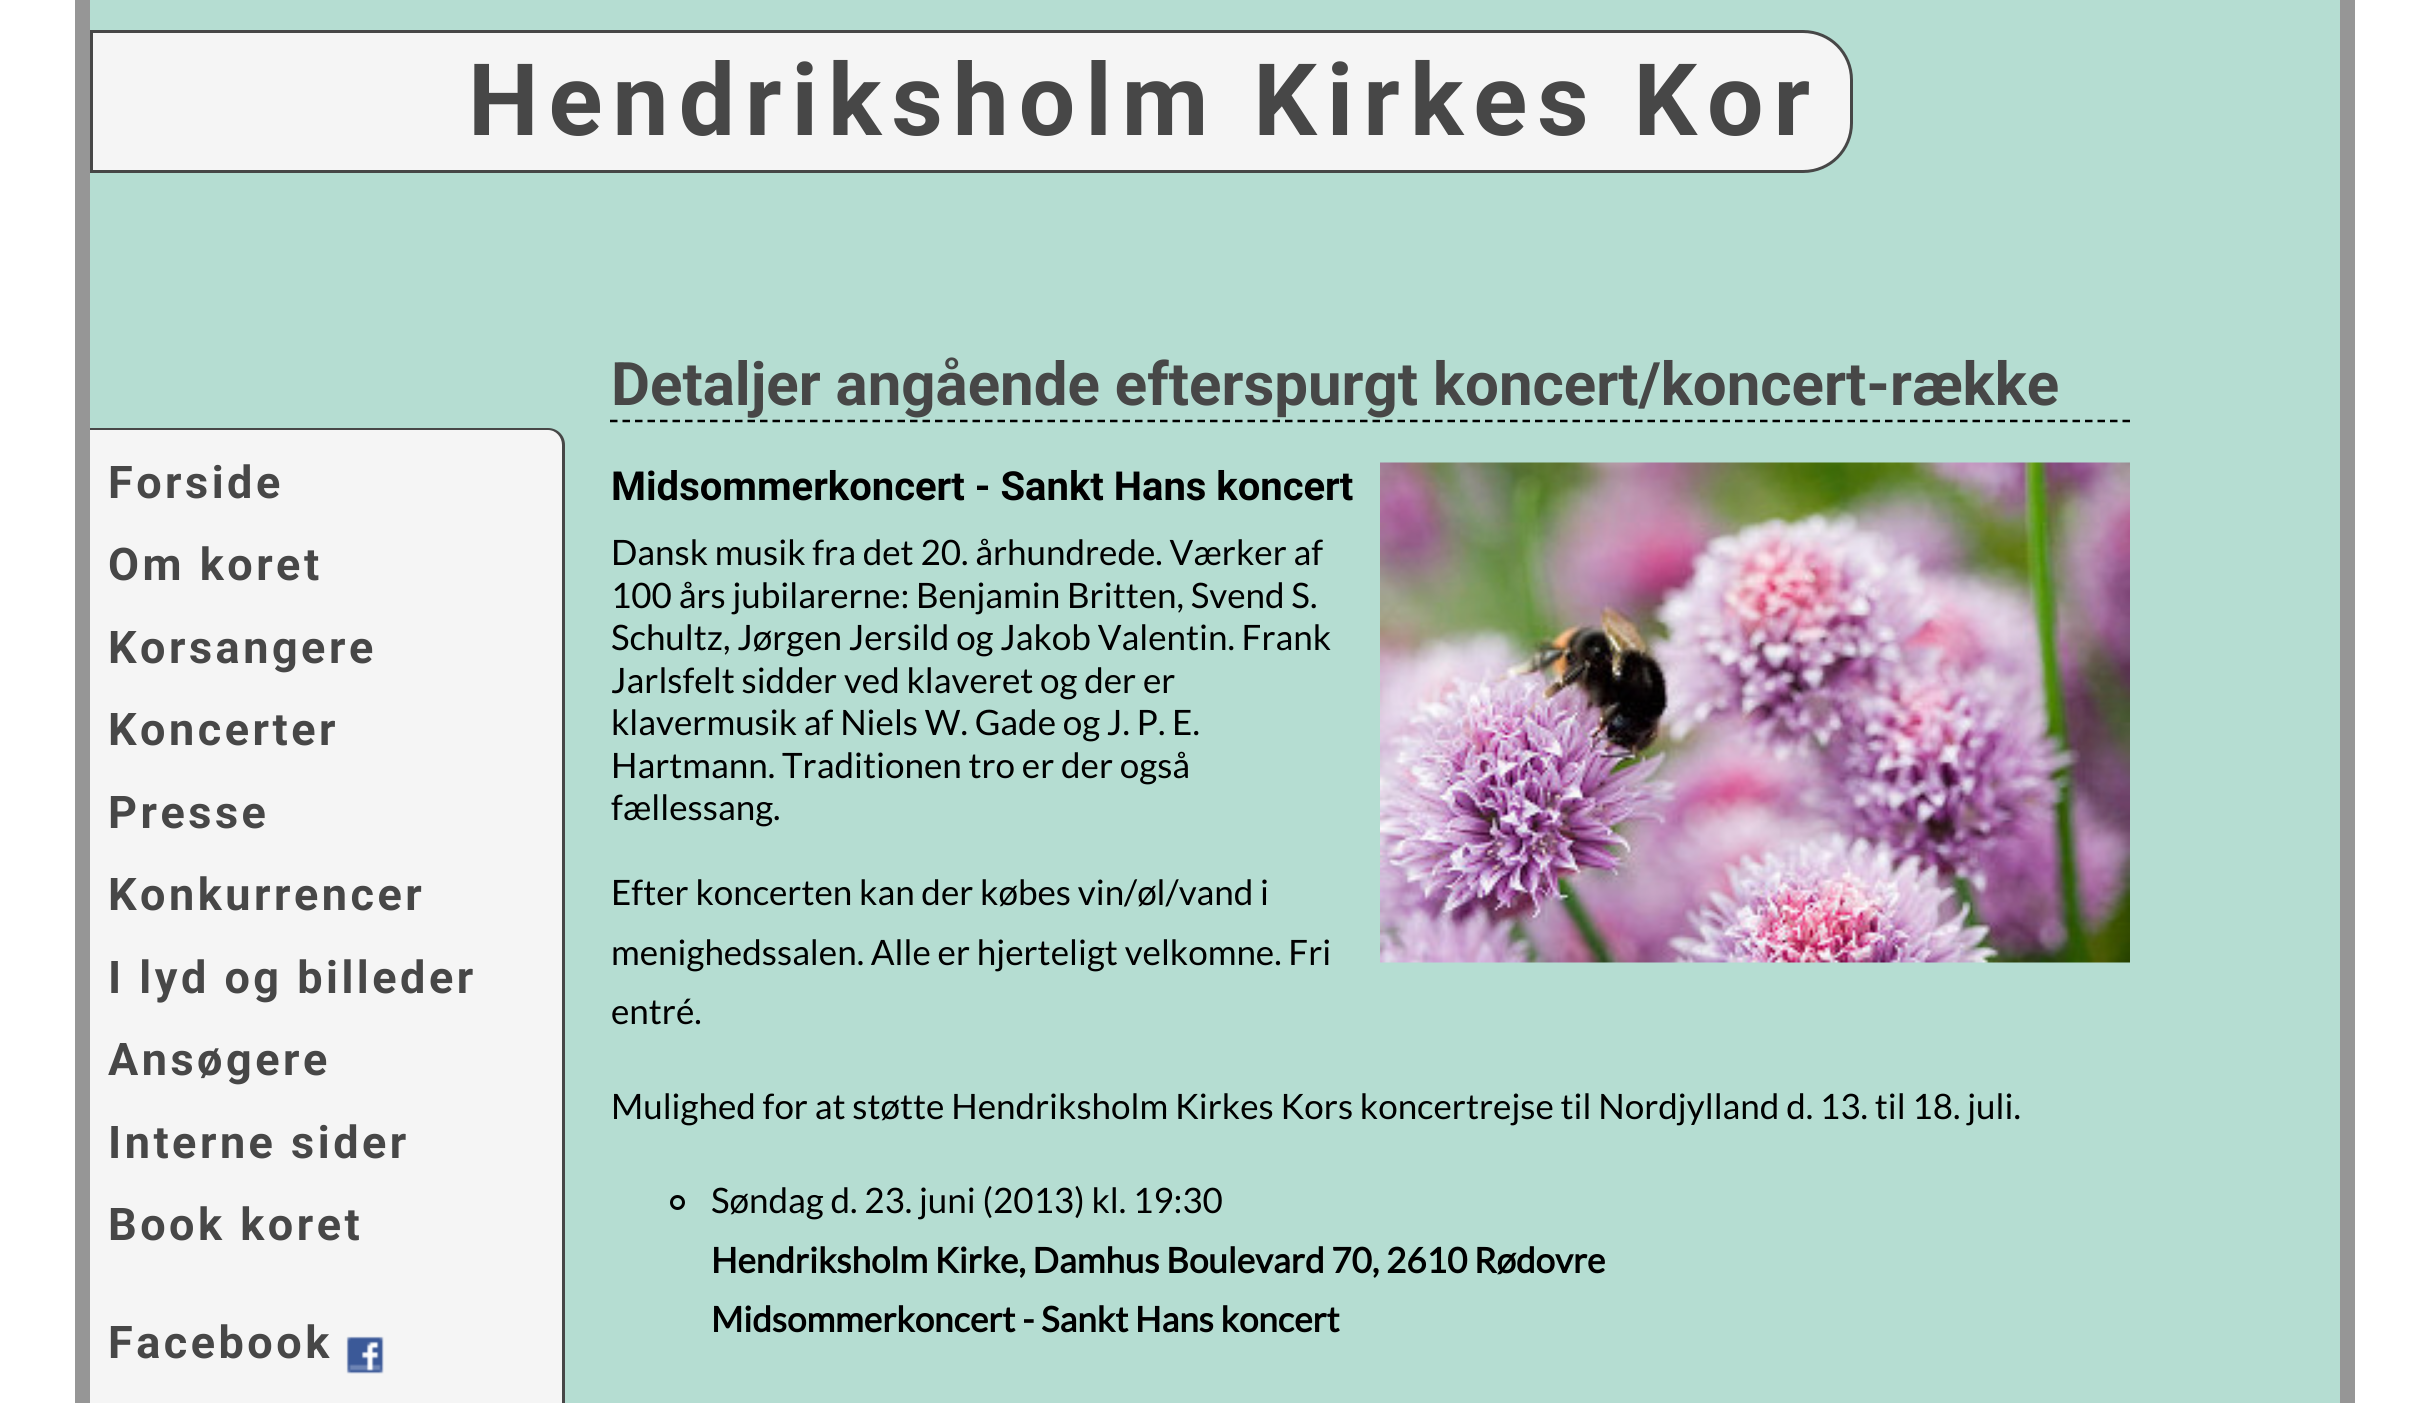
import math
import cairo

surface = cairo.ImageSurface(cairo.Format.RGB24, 2428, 1403)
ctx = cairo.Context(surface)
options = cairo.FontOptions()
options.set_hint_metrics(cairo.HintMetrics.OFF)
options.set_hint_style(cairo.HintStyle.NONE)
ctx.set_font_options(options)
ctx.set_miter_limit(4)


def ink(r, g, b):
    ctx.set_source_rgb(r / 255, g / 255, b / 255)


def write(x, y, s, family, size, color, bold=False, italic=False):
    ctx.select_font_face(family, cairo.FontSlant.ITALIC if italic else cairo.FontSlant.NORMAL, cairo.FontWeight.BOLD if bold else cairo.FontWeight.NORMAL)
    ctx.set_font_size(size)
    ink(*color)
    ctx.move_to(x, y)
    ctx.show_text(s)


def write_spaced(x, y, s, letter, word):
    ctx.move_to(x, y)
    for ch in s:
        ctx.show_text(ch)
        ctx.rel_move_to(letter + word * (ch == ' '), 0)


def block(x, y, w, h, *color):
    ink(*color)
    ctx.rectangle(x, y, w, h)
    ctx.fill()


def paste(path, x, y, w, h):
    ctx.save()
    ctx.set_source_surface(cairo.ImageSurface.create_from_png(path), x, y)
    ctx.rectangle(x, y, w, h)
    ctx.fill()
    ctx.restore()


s1 = dict(family="Roboto", size=60, color=(71, 71, 71), bold=True)
s2 = dict(family="Roboto", size=40, color=(0, 0, 0), bold=True)
s3 = dict(family="Lato", size=35, color=(0, 0, 0))
s4 = dict(family="Lato", size=35, color=(0, 0, 0), bold=True)

ink(255, 255, 255)
ctx.paint()
block(75, 0, 2280, 1403, 150, 150, 150)
block(90, 0, 2250, 1403, 181, 221, 210)
ink(245, 245, 245)
ctx.new_path()
ctx.move_to(91.5, 31.5)
ctx.line_to(1803, 31.5)
ctx.curve_to(1830, 31.5, 1851.5, 53, 1851.5, 80)
ctx.line_to(1851.5, 123)
ctx.curve_to(1851.5, 150, 1830, 171.5, 1803, 171.5)
ctx.line_to(91.5, 171.5)
ctx.close_path()
ctx.fill_preserve()
ink(71, 71, 71)
ctx.set_line_width(3)
ctx.stroke()
ctx.select_font_face("Roboto", cairo.FontSlant.NORMAL, cairo.FontWeight.BOLD)
ctx.set_font_size(100)
write_spaced(468, 135, "Hendriksholm Kirkes Kor", 10, 0)
ink(245, 245, 245)
ctx.new_path()
ctx.move_to(90, 430)
ctx.line_to(548, 430)
ctx.curve_to(556.5, 430, 563, 436.5, 563, 445)
ctx.line_to(563, 1403)
ctx.curve_to(563, 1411.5, 556.5, 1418, 548, 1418)
ctx.line_to(90, 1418)
ctx.close_path()
ctx.fill()
ink(71, 71, 71)
ctx.set_fill_rule(cairo.FillRule.EVEN_ODD)
ctx.new_path()
ctx.move_to(90, 428)
ctx.line_to(548, 428)
ctx.curve_to(557, 428, 565, 435, 565, 445)
ctx.line_to(565, 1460)
ctx.curve_to(565, 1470, 557, 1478, 548, 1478)
ctx.line_to(90, 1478)
ctx.close_path()
ctx.move_to(90, 430)
ctx.line_to(548, 430)
ctx.curve_to(556, 430, 562, 437, 562, 445)
ctx.line_to(562, 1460)
ctx.curve_to(562, 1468, 556, 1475, 548, 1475)
ctx.line_to(90, 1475)
ctx.close_path()
ctx.fill()
ctx.set_font_size(45)
write_spaced(108, 498, "Forside", 3.5, 0)
write_spaced(108, 580, "Om koret", 3.5, 0)
write_spaced(108, 663, "Korsangere", 3.5, 0)
write_spaced(108, 745, "Koncerter", 3.5, 0)
write_spaced(108, 828, "Presse", 3.5, 0)
write_spaced(108, 910, "Konkurrencer", 3.5, 0)
write_spaced(108, 993, "I lyd og billeder", 3.5, 0)
write_spaced(108, 1075, "Ansøgere", 3.5, 0)
write_spaced(108, 1158, "Interne sider", 3.5, 0)
write_spaced(108, 1240, "Book koret", 3.5, 0)
write_spaced(108, 1358, "Facebook", 3.5, 0)
paste("pic1.png", 346, 1336, 38, 38)
ctx.new_path()
ctx.move_to(610, 421)
ctx.line_to(2130, 421)
ink(0, 0, 0)
ctx.set_line_width(2.5)
ctx.set_dash([7.5, 5])
ctx.stroke()
write(611, 405, "Detaljer angående efterspurgt koncert/koncert-række", **s1)
write(611, 500, "Midsommerkoncert - Sankt Hans koncert", **s2)
paste("pic2.png", 1380, 462, 750, 501)
write(611, 565, "Dansk musik fra det 20. århundrede. Værker af", **s3)
write(611, 608, "100 års jubilarerne: Benjamin Britten, Svend S.", **s3)
write(611, 650, "Schultz, Jørgen Jersild og Jakob Valentin. Frank", **s3)
write(611, 693, "Jarlsfelt sidder ved klaveret og der er", **s3)
write(611, 735, "klavermusik af Niels W. Gade og J. P. E.", **s3)
write(611, 778, "Hartmann. Traditionen tro er der også", **s3)
write(611, 820, "fællessang.", **s3)
write(611, 905, "Efter koncerten kan der købes vin/øl/vand i", **s3)
write(611, 965, "menighedssalen. Alle er hjerteligt velkomne. Fri", **s3)
write(611, 1024, "entré.", **s3)
write(611, 1119, "Mulighed for at støtte Hendriksholm Kirkes Kors koncertrejse til Nordjylland d. 13. til 18. juli.", **s3)
ctx.new_path()
ctx.arc(677.5, 1202.5, 6, 0, 2 * math.pi)
ctx.set_line_width(3)
ctx.set_dash([])
ctx.stroke()
write(711, 1213, "Søndag d. 23. juni (2013) kl. 19:30", **s3)
write(711, 1273, "Hendriksholm Kirke, Damhus Boulevard 70, 2610 Rødovre", **s4)
write(711, 1332, "Midsommerkoncert - Sankt Hans koncert", **s4)
surface.write_to_png("screenshot.png")
